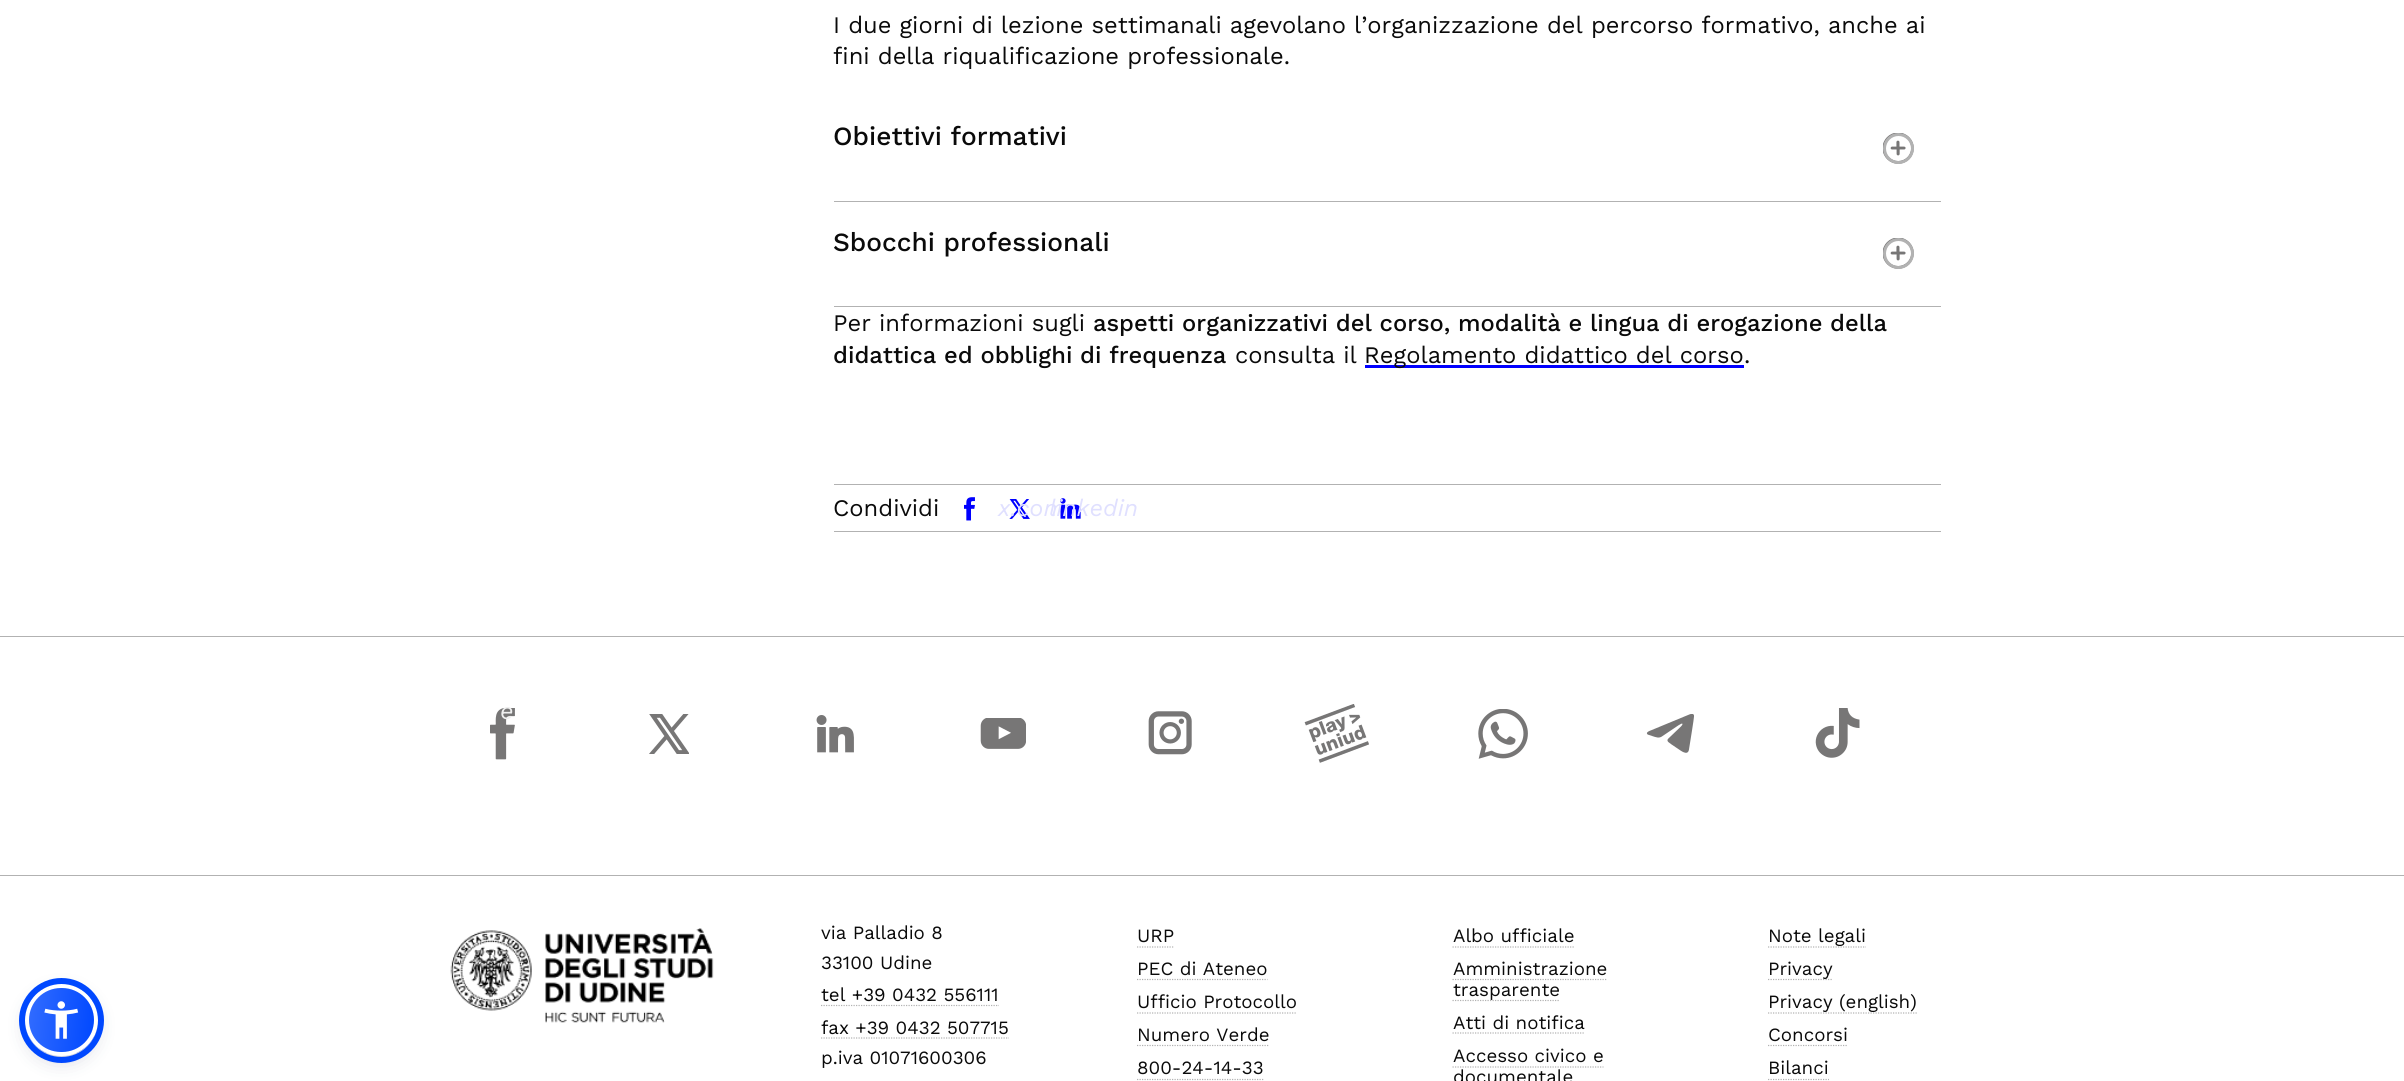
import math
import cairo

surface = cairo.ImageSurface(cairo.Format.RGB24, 2404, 1081)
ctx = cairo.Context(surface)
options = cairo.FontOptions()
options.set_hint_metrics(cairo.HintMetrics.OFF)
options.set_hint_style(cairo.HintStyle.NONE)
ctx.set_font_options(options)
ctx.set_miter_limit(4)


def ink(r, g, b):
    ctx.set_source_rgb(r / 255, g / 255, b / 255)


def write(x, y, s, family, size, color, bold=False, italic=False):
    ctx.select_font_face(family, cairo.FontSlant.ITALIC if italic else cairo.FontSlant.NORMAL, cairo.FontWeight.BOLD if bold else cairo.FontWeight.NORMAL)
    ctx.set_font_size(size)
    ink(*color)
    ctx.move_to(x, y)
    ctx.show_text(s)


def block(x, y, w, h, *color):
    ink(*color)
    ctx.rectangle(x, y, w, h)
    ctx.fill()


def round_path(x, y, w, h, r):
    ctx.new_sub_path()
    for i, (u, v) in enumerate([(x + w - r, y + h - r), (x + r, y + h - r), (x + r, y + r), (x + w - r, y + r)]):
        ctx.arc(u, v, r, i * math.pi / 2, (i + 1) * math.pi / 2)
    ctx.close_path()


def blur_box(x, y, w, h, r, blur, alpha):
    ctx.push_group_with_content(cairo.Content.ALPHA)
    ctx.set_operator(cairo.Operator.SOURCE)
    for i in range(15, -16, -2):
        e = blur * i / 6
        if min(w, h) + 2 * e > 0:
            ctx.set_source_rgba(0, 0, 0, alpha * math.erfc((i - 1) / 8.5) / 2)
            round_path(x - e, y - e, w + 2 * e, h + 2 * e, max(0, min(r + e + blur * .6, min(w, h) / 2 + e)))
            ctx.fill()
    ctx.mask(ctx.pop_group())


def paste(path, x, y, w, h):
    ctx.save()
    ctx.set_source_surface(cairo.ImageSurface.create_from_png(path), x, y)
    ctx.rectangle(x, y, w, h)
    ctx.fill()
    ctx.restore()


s1 = dict(family="Work Sans", size=23.75, color=(10, 10, 10))
s2 = dict(family="Work Sans Medium", size=26.25, color=(10, 10, 10))
s3 = dict(family="Work Sans Medium", size=23.75, color=(10, 10, 10))
s4 = dict(family="Work Sans", size=23.75, color=(224, 224, 255), italic=True)
s5 = dict(family="Work Sans", size=23.75, color=(239, 239, 239), italic=True)
s6 = dict(family="Work Sans", size=18.75, color=(10, 10, 10))

ink(255, 255, 255)
ctx.paint()
write(833, 33, "I due giorni di lezione settimanali agevolano l’organizzazione del percorso formativo, anche ai", **s1)
write(833, 64, "fini della riqualificazione professionale.", **s1)
block(834, 201, 1107, 1, 178, 178, 178)
write(833, 145, "Obiettivi formativi", **s2)
paste("pic1.png", 1883, 133, 31, 31)
ctx.arc(1898.5, 148.5, 14, 0, 2 * math.pi)
ink(178, 178, 178)
ctx.set_line_width(3)
ctx.stroke()
block(834, 306, 1107, 1, 178, 178, 178)
write(833, 251, "Sbocchi professionali", **s2)
paste("pic1.png", 1883, 238, 31, 31)
ctx.arc(1898.5, 253.5, 14, 0, 2 * math.pi)
ink(178, 178, 178)
ctx.stroke()
write(833, 331, "Per informazioni sugli", **s1)
write(1093, 331, "aspetti organizzativi del corso, modalità e lingua di erogazione della", **s3)
write(833, 363, "didattica ed obblighi di frequenza", **s3)
write(1235, 363, "consulta il", **s1)
block(1365, 365, 379, 3, 0, 0, 255)
write(1364, 363, "Regolamento didattico del corso", **s1)
write(1744, 363, ".", **s1)
block(834, 484, 1107, 1, 178, 178, 178)
block(834, 531, 1107, 1, 178, 178, 178)
write(833, 516, "Condividi", **s1)
paste("pic2.png", 964, 497, 11, 24)
paste("pic3.png", 1009, 499, 21, 20)
write(998, 516, "x.com", **s4)
paste("pic4.png", 1060, 498, 21, 21)
write(1049, 516, "linkedin", **s4)
block(0, 636, 2404, 1, 178, 178, 178)
paste("pic5.png", 490, 708, 25, 52)
write(500, 719, "e", **s5)
paste("pic6.png", 649, 714, 40, 40)
paste("pic7.png", 816, 715, 38, 38)
paste("pic8.png", 980, 718, 46, 31)
paste("pic9.png", 1148, 711, 44, 44)
paste("pic10.png", 1304, 704, 65, 59)
paste("pic11.png", 1478, 709, 50, 50)
paste("pic12.png", 1646, 714, 48, 39)
paste("pic13.png", 1815, 708, 45, 50)
ink(93, 100, 148)
blur_box(25, 986, 73, 73, 36.5, 2.5, 0.2)
ink(37, 44, 97)
blur_box(25, 990, 73, 73, 36.5, 9.5, 0.15)
ctx.save()
round_path(25, 984, 73, 72, 36)
ctx.clip()
gradient = cairo.LinearGradient(26, 1016, 97, 1024)
gradient.add_color_stop_rgba(0, 0.196, 0.424, 1, 1)
gradient.add_color_stop_rgba(1, 0, 0.282, 1, 1)
ctx.set_source(gradient)
ctx.rectangle(29, 988, 65, 65)
ctx.fill()
ctx.restore()
round_path(27, 986, 69, 68, 34)
ink(255, 255, 255)
ctx.set_line_width(4)
ctx.stroke()
ctx.arc(61.5, 1020.5, 39.5, 0, 2 * math.pi)
ink(0, 72, 255)
ctx.set_line_width(6)
ctx.stroke()
paste("pic14.png", 44, 1001, 35, 38)
block(0, 875, 2404, 1, 178, 178, 178)
paste("pic15.png", 450, 928, 264, 95)
write(821, 939, "via Palladio 8", **s6)
write(821, 969, "33100 Udine", **s6)
write(821, 1001, "tel +39 0432 556111", **s6)
ctx.new_path()
ctx.move_to(821, 1005.5)
ctx.line_to(999, 1005.5)
ink(178, 178, 178)
ctx.set_line_width(1.2)
ctx.set_dash([1.25, 1.25])
ctx.stroke()
write(821, 1034, "fax +39 0432 507715", **s6)
ctx.new_path()
ctx.move_to(821, 1038)
ctx.line_to(1009, 1038)
ink(178, 178, 178)
ctx.stroke()
write(821, 1064, "p.iva 01071600306", **s6)
write(1137, 942, "URP", **s6)
ctx.new_path()
ctx.move_to(1137, 947)
ctx.line_to(1174, 947)
ink(178, 178, 178)
ctx.stroke()
write(1137, 975, "PEC di Ateneo", **s6)
ctx.new_path()
ctx.move_to(1137, 979.5)
ctx.line_to(1267.5, 979.5)
ink(178, 178, 178)
ctx.stroke()
write(1137, 1008, "Ufficio Protocollo", **s6)
ctx.new_path()
ctx.move_to(1137, 1013)
ctx.line_to(1297, 1013)
ink(178, 178, 178)
ctx.stroke()
write(1137, 1041, "Numero Verde", **s6)
ctx.new_path()
ctx.move_to(1137, 1045.5)
ctx.line_to(1269.5, 1045.5)
ink(178, 178, 178)
ctx.stroke()
write(1137, 1074, "800-24-14-33", **s6)
ctx.new_path()
ctx.move_to(1137, 1079.5)
ctx.line_to(1263.5, 1079.5)
ink(178, 178, 178)
ctx.stroke()
write(1453, 942, "Albo ufficiale", **s6)
ctx.new_path()
ctx.move_to(1452.5, 947)
ctx.line_to(1574, 947)
ink(178, 178, 178)
ctx.stroke()
write(1453, 975, "Amministrazione", **s6)
ctx.new_path()
ctx.move_to(1452.5, 979.5)
ctx.line_to(1607, 979.5)
ink(178, 178, 178)
ctx.stroke()
ctx.new_path()
ctx.move_to(1452.5, 1000.5)
ctx.line_to(1559.5, 1000.5)
ctx.stroke()
write(1453, 996, "trasparente", **s6)
write(1453, 1029, "Atti di notifica", **s6)
ctx.new_path()
ctx.move_to(1452.5, 1033)
ctx.line_to(1584.5, 1033)
ink(178, 178, 178)
ctx.stroke()
write(1453, 1062, "Accesso civico e", **s6)
write(1453, 1083, "documentale", **s6)
ctx.new_path()
ctx.move_to(1452.5, 1067)
ctx.line_to(1603.5, 1067)
ink(178, 178, 178)
ctx.stroke()
write(1768, 942, "Note legali", **s6)
ctx.new_path()
ctx.move_to(1768, 947)
ctx.line_to(1866, 947)
ink(178, 178, 178)
ctx.stroke()
ctx.new_path()
ctx.move_to(1768, 979.5)
ctx.line_to(1833, 979.5)
ctx.stroke()
write(1768, 975, "Privacy", **s6)
write(1768, 1008, "Privacy (english)", **s6)
ctx.new_path()
ctx.move_to(1768, 1013)
ctx.line_to(1917, 1013)
ink(178, 178, 178)
ctx.stroke()
write(1768, 1041, "Concorsi", **s6)
ctx.new_path()
ctx.move_to(1768, 1045.5)
ctx.line_to(1848, 1045.5)
ink(178, 178, 178)
ctx.stroke()
write(1768, 1074, "Bilanci", **s6)
ctx.new_path()
ctx.move_to(1768, 1079.5)
ctx.line_to(1829, 1079.5)
ink(178, 178, 178)
ctx.stroke()
surface.write_to_png("screenshot.png")
